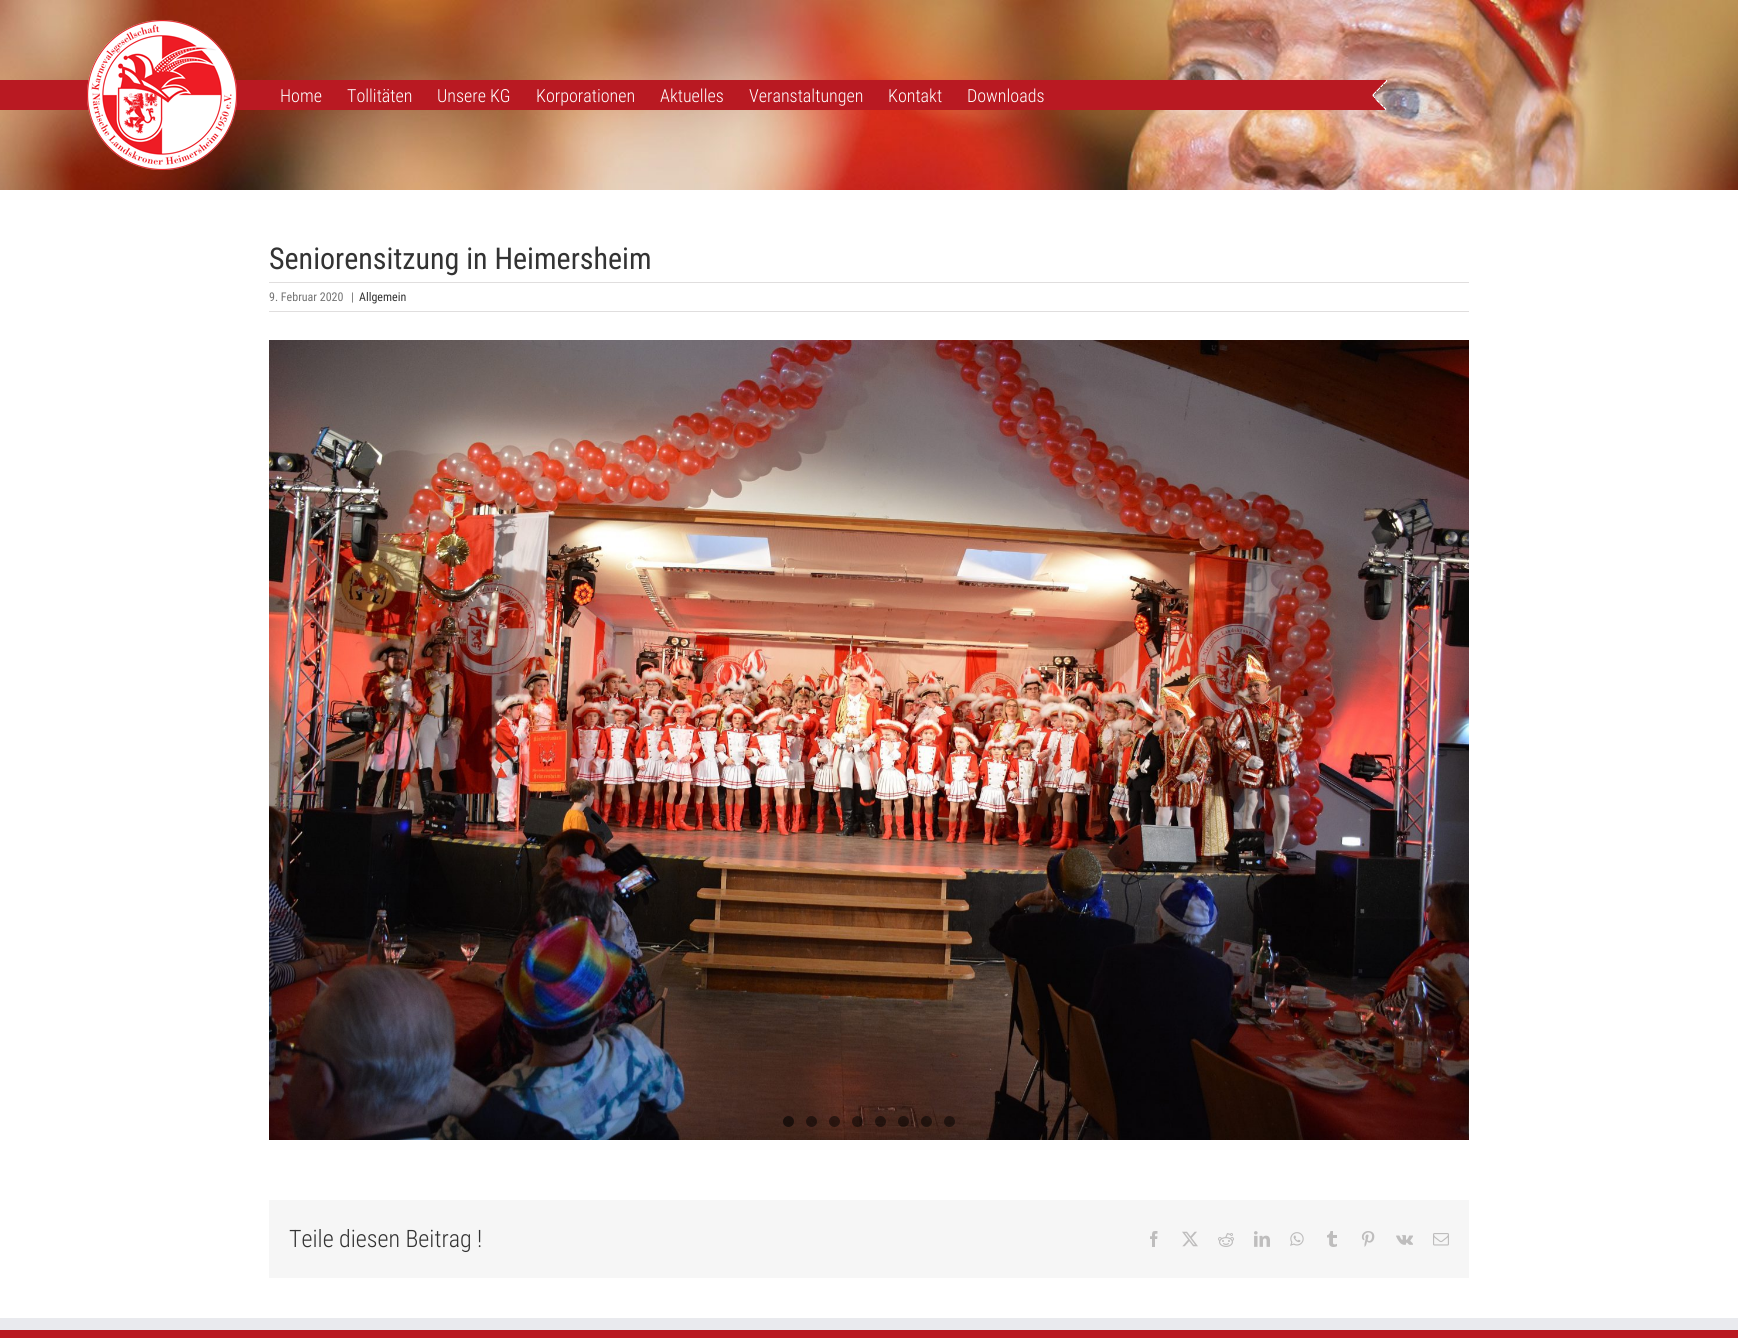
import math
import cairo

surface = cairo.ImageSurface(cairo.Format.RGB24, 1738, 1338)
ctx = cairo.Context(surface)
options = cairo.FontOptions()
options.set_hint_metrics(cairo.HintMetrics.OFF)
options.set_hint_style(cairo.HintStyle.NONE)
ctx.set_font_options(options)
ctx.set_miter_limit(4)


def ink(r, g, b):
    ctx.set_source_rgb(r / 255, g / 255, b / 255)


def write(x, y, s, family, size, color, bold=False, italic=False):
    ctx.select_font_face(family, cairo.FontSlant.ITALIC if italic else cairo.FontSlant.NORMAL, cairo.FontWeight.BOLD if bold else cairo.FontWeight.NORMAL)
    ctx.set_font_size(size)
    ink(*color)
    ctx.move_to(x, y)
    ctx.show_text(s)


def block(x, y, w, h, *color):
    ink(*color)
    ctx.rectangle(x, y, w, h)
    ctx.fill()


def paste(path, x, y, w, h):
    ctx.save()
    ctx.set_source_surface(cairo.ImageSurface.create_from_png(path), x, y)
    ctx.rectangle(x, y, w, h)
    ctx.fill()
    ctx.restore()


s1 = dict(family="Roboto Condensed Light", size=18, color=(255, 255, 255))
s2 = dict(family="Roboto Condensed", size=30, color=(51, 51, 51))
s3 = dict(family="Roboto Condensed", size=12, color=(116, 116, 116))
s4 = dict(family="Roboto Condensed", size=12, color=(51, 51, 51))
s5 = dict(family="Roboto Condensed Light", size=24, color=(51, 51, 51))

ink(255, 255, 255)
ctx.paint()
paste("pic1.png", 0, 0, 1738, 190)
paste("pic3.png", 0, 80, 1387, 30)
paste("pic2.png", 87, 20, 150, 150)
write(280, 102, "Home", **s1)
write(347, 102, "Tollitäten", **s1)
write(437, 102, "Unsere KG", **s1)
write(536, 102, "Korporationen", **s1)
write(660, 102, "Aktuelles", **s1)
write(749, 102, "Veranstaltungen", **s1)
write(888, 102, "Kontakt", **s1)
write(967, 102, "Downloads", **s1)
write(269, 269, "Seniorensitzung in Heimersheim", **s2)
block(269, 282, 1200, 1, 224, 222, 222)
block(269, 311, 1200, 1, 224, 222, 222)
write(269, 301, "9. Februar 2020", **s3)
write(351, 301, "|", **s3)
write(359, 301, "Allgemein", **s4)
paste("pic4.png", 269, 340, 1200, 800)
ctx.set_source_rgba(0, 0, 0, 0.6)
ctx.arc(788.5, 1121.5, 5.5, 0, 2 * math.pi)
ctx.fill()
ctx.set_source_rgba(0, 0, 0, 0.5)
ctx.arc(811.5, 1121.5, 5.5, 0, 2 * math.pi)
ctx.fill()
ctx.arc(834.5, 1121.5, 5.5, 0, 2 * math.pi)
ctx.fill()
ctx.arc(857.5, 1121.5, 5.5, 0, 2 * math.pi)
ctx.fill()
ctx.arc(880.5, 1121.5, 5.5, 0, 2 * math.pi)
ctx.fill()
ctx.arc(903.5, 1121.5, 5.5, 0, 2 * math.pi)
ctx.fill()
ctx.arc(926.5, 1121.5, 5.5, 0, 2 * math.pi)
ctx.fill()
ctx.arc(949.5, 1121.5, 5.5, 0, 2 * math.pi)
ctx.fill()
block(269, 1200, 1200, 78, 246, 246, 246)
write(289, 1247, "Teile diesen Beitrag !", **s5)
paste("pic5.png", 1150, 1231, 8, 16)
paste("pic6.png", 1182, 1231, 16, 16)
paste("pic7.png", 1218, 1233, 16, 14)
paste("pic8.png", 1254, 1231, 16, 16)
paste("pic9.png", 1290, 1232, 14, 14)
paste("pic10.png", 1327, 1231, 10, 16)
paste("pic11.png", 1361, 1231, 14, 16)
paste("pic12.png", 1396, 1235, 17, 10)
paste("pic13.png", 1433, 1233, 16, 13)
block(0, 1330, 1738, 8, 185, 25, 34)
block(0, 1318, 1738, 12, 233, 234, 238)
surface.write_to_png("screenshot.png")
